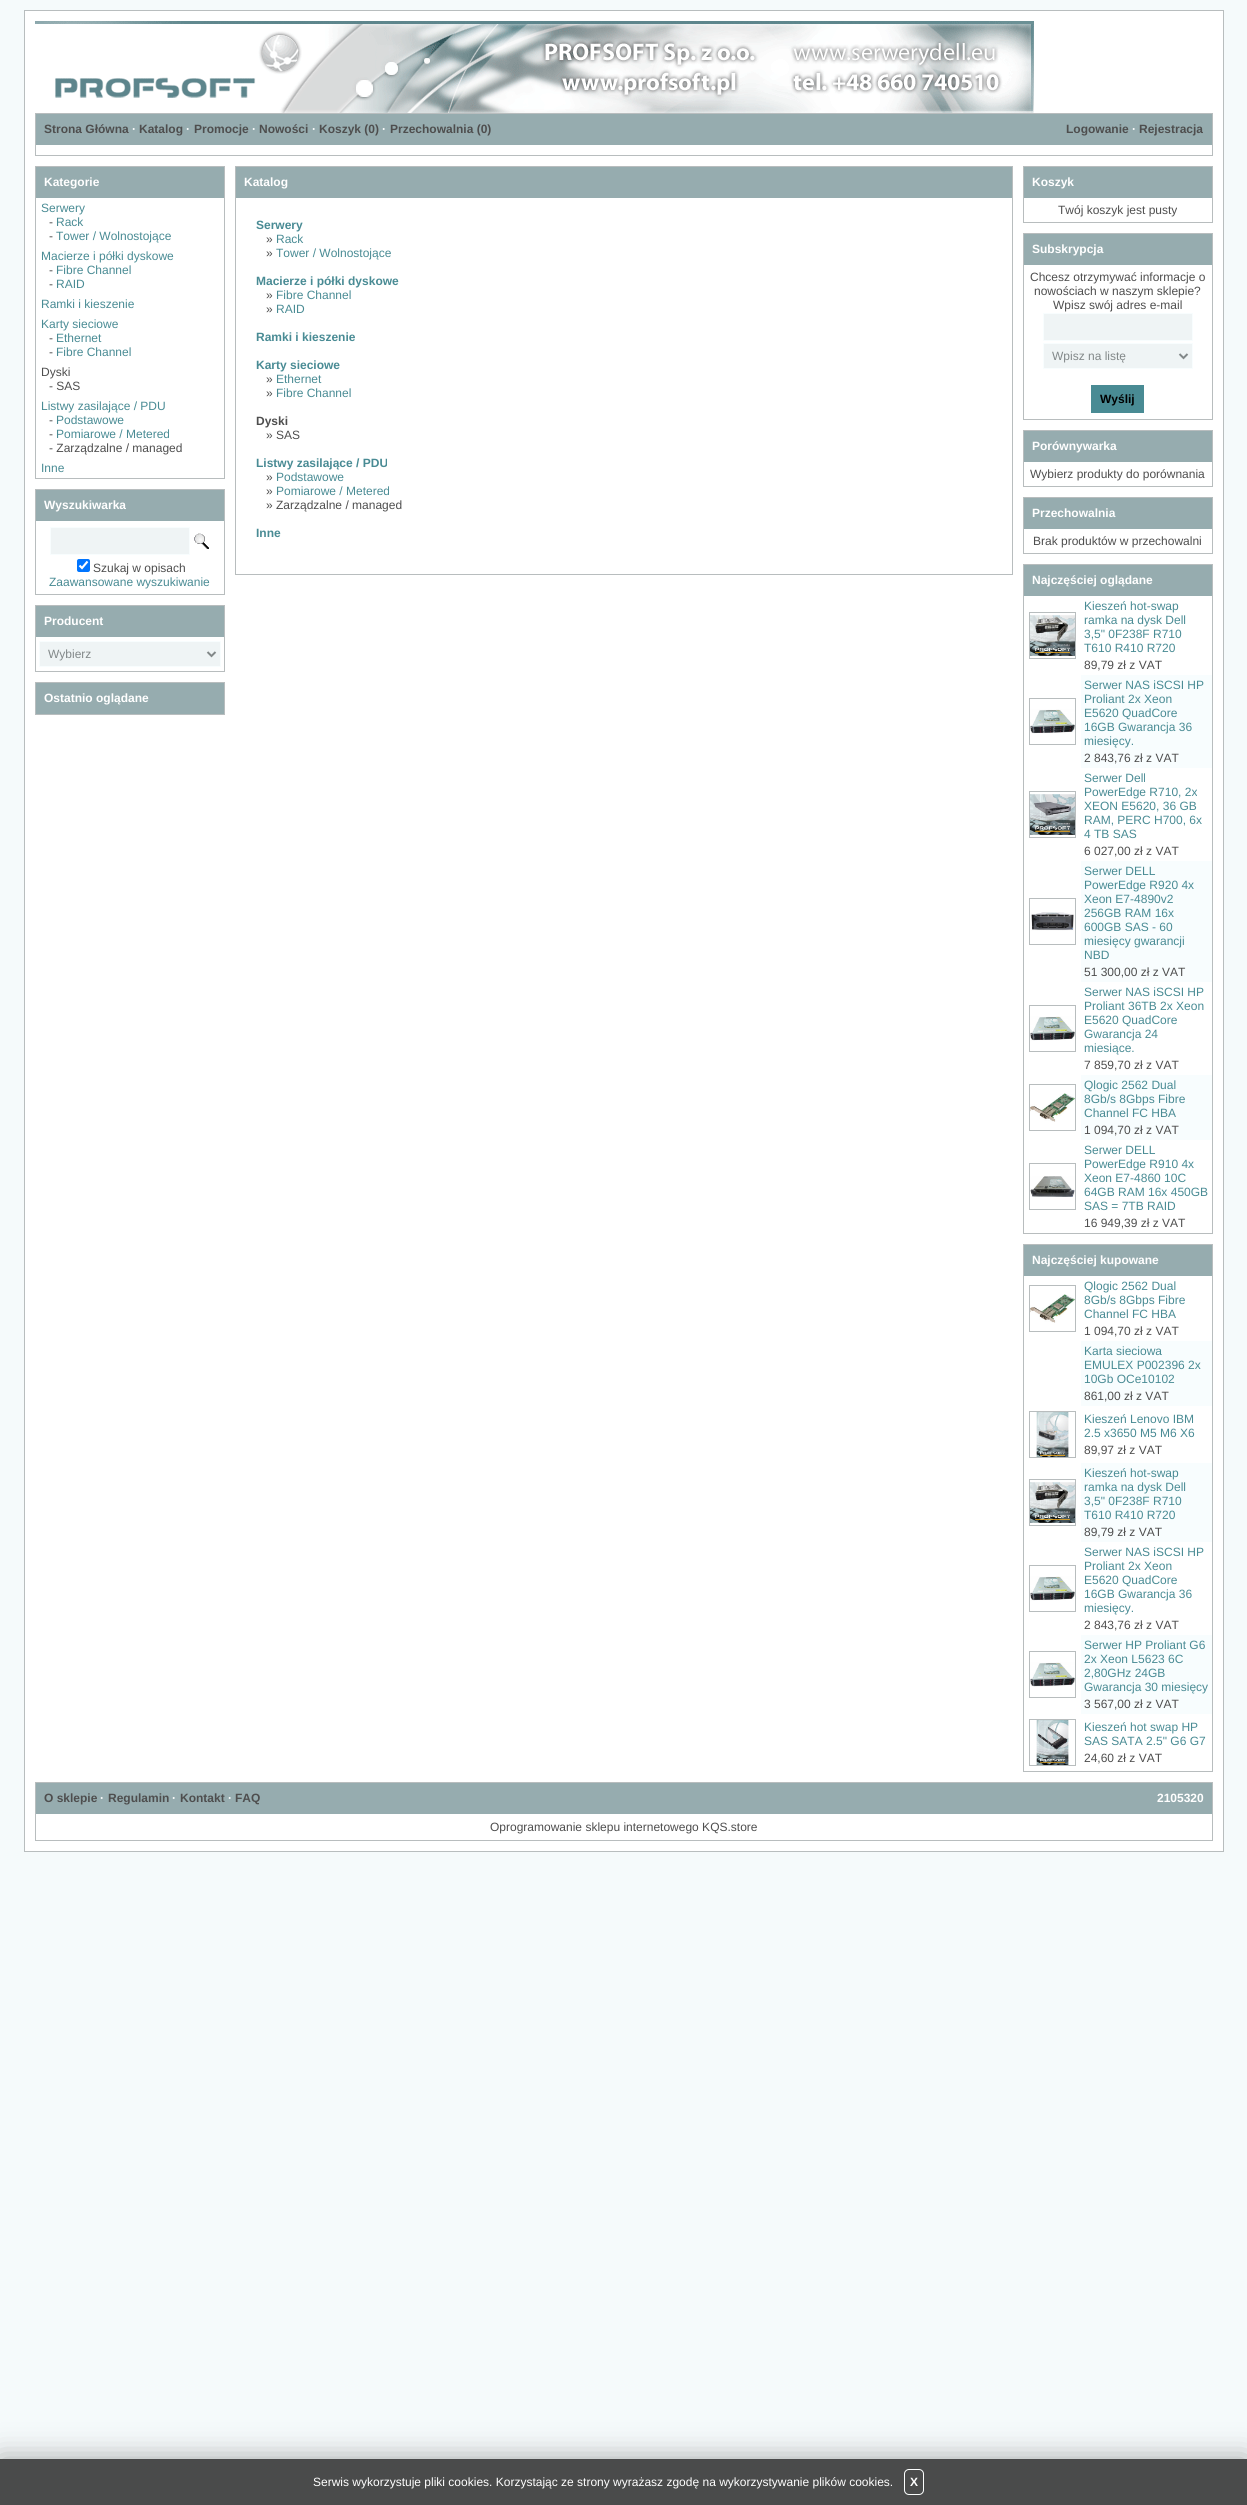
import math
import cairo

surface = cairo.ImageSurface(cairo.Format.RGB24, 1247, 2505)
ctx = cairo.Context(surface)
options = cairo.FontOptions()
options.set_hint_metrics(cairo.HintMetrics.OFF)
options.set_hint_style(cairo.HintStyle.NONE)
ctx.set_font_options(options)
ctx.set_miter_limit(4)


def ink(r, g, b):
    ctx.set_source_rgb(r / 255, g / 255, b / 255)


def write(x, y, s, family, size, color, bold=False, italic=False):
    ctx.select_font_face(family, cairo.FontSlant.ITALIC if italic else cairo.FontSlant.NORMAL, cairo.FontWeight.BOLD if bold else cairo.FontWeight.NORMAL)
    ctx.set_font_size(size)
    ink(*color)
    ctx.move_to(x, y)
    ctx.show_text(s)


def block(x, y, w, h, *color):
    ink(*color)
    ctx.rectangle(x, y, w, h)
    ctx.fill()


def round_path(x, y, w, h, r):
    ctx.new_sub_path()
    for i, (u, v) in enumerate([(x + w - r, y + h - r), (x + r, y + h - r), (x + r, y + r), (x + w - r, y + r)]):
        ctx.arc(u, v, r, i * math.pi / 2, (i + 1) * math.pi / 2)
    ctx.close_path()


def blur_box(x, y, w, h, r, blur, alpha):
    ctx.push_group_with_content(cairo.Content.ALPHA)
    ctx.set_operator(cairo.Operator.SOURCE)
    for i in range(15, -16, -2):
        e = blur * i / 6
        if min(w, h) + 2 * e > 0:
            ctx.set_source_rgba(0, 0, 0, alpha * math.erfc((i - 1) / 8.5) / 2)
            round_path(x - e, y - e, w + 2 * e, h + 2 * e, max(0, min(r + e + blur * .6, min(w, h) / 2 + e)))
            ctx.fill()
    ctx.mask(ctx.pop_group())


def paste(path, x, y, w, h):
    ctx.save()
    ctx.set_source_surface(cairo.ImageSurface.create_from_png(path), x, y)
    ctx.rectangle(x, y, w, h)
    ctx.fill()
    ctx.restore()


s1 = dict(family="Liberation Sans", size=12, color=(78, 78, 78), bold=True)
s2 = dict(family="Liberation Sans", size=12, color=(255, 255, 255), bold=True)
s3 = dict(family="Liberation Sans", size=12, color=(73, 139, 148))
s4 = dict(family="Liberation Sans", size=12, color=(78, 78, 78))
s5 = dict(family="Liberation Sans", size=12, color=(130, 136, 137))
s6 = dict(family="Liberation Sans", size=12, color=(73, 139, 148), bold=True)
s7 = dict(family="Liberation Sans", size=12, color=(0, 0, 0), bold=True)
s8 = dict(family="Liberation Sans", size=12, color=(255, 255, 255))

ink(245, 250, 251)
ctx.paint()
ink(255, 255, 255)
ctx.rectangle(24.5, 10.5, 1199, 1841)
ctx.fill_preserve()
ink(184, 189, 190)
ctx.set_line_width(1)
ctx.stroke()
paste("pic1.png", 35, 21, 999, 92)
block(36, 114, 1176, 31, 150, 172, 175)
block(35, 113, 1178, 1, 184, 189, 190)
block(1212, 113, 1, 43, 184, 189, 190)
block(35, 113, 1, 32, 184, 189, 190)
write(44, 133, "Strona Główna", **s1)
write(132, 133, "·", **s2)
write(139, 133, "Katalog", **s1)
write(186, 133, "·", **s2)
write(194, 133, "Promocje", **s1)
write(252, 133, "·", **s2)
write(259, 133, "Nowości", **s1)
write(312, 133, "·", **s2)
write(319, 133, "Koszyk (0)", **s1)
write(382, 133, "·", **s2)
write(390, 133, "Przechowalnia (0)", **s1)
write(1066, 133, "Logowanie", **s1)
write(1132, 133, "·", **s2)
write(1139, 133, "Rejestracja", **s1)
block(35, 155, 1178, 1, 184, 189, 190)
block(35, 145, 1, 11, 184, 189, 190)
block(36, 167, 188, 31, 150, 172, 175)
block(35, 166, 190, 1, 184, 189, 190)
block(224, 166, 1, 313, 184, 189, 190)
block(35, 166, 1, 32, 184, 189, 190)
write(44, 186, "Kategorie", **s2)
block(35, 478, 190, 1, 184, 189, 190)
block(35, 198, 1, 281, 184, 189, 190)
write(41, 212, "Serwery", **s3)
write(49, 226, "-", **s4)
write(56, 226, "Rack", **s3)
write(49, 240, "-", **s4)
write(56, 240, "Tower / Wolnostojące", **s3)
write(41, 260, "Macierze i półki dyskowe", **s3)
write(49, 274, "-", **s4)
write(56, 274, "Fibre Channel", **s3)
write(49, 288, "-", **s4)
write(56, 288, "RAID", **s3)
write(41, 308, "Ramki i kieszenie", **s3)
write(41, 328, "Karty sieciowe", **s3)
write(49, 342, "-", **s4)
write(56, 342, "Ethernet", **s3)
write(49, 356, "-", **s4)
write(56, 356, "Fibre Channel", **s3)
write(41, 376, "Dyski", **s4)
write(49, 390, "- SAS", **s4)
write(41, 410, "Listwy zasilające / PDU", **s3)
write(49, 424, "-", **s4)
write(56, 424, "Podstawowe", **s3)
write(49, 438, "-", **s4)
write(56, 438, "Pomiarowe / Metered", **s3)
write(49, 452, "- Zarządzalne / managed", **s4)
write(41, 472, "Inne", **s3)
block(36, 490, 188, 31, 150, 172, 175)
block(35, 489, 190, 1, 184, 189, 190)
block(224, 489, 1, 106, 184, 189, 190)
block(35, 489, 1, 32, 184, 189, 190)
write(44, 509, "Wyszukiwarka", **s2)
block(35, 594, 190, 1, 184, 189, 190)
block(35, 521, 1, 74, 184, 189, 190)
ink(239, 244, 245)
ctx.rectangle(50.5, 527.5, 139, 27)
ctx.fill_preserve()
ink(248, 253, 254)
ctx.stroke()
paste("pic2.png", 194, 533, 15, 16)
ink(0, 117, 255)
round_path(77, 559, 13, 13, 2)
ctx.fill()
ctx.new_path()
ctx.move_to(79.5, 565.5)
ctx.line_to(82, 568)
ctx.line_to(87.5, 561.5)
ink(255, 255, 255)
ctx.set_line_width(2.1)
ctx.stroke()
write(93, 572, "Szukaj w opisach", **s4)
write(49, 586, "Zaawansowane wyszukiwanie", **s3)
block(36, 606, 188, 31, 150, 172, 175)
block(35, 605, 190, 1, 184, 189, 190)
block(224, 605, 1, 67, 184, 189, 190)
block(35, 605, 1, 32, 184, 189, 190)
write(44, 625, "Producent", **s2)
block(35, 671, 190, 1, 184, 189, 190)
block(35, 637, 1, 35, 184, 189, 190)
ink(239, 244, 245)
ctx.rectangle(39.5, 641.5, 181, 25)
ctx.fill_preserve()
ink(248, 253, 254)
ctx.set_line_width(1)
ctx.stroke()
ctx.new_path()
ctx.move_to(207.5, 652)
ctx.line_to(211.5, 656)
ctx.line_to(215.5, 652)
ink(130, 136, 137)
ctx.set_line_width(2)
ctx.stroke()
write(48, 658, "Wybierz", **s5)
block(36, 683, 188, 31, 150, 172, 175)
block(35, 682, 190, 1, 184, 189, 190)
block(224, 682, 1, 32, 184, 189, 190)
block(35, 682, 1, 32, 184, 189, 190)
write(44, 702, "Ostatnio oglądane", **s2)
block(35, 714, 190, 1, 184, 189, 190)
block(236, 167, 776, 31, 150, 172, 175)
block(235, 166, 778, 1, 184, 189, 190)
block(1012, 166, 1, 409, 184, 189, 190)
block(235, 166, 1, 32, 184, 189, 190)
write(244, 186, "Katalog", **s2)
block(235, 574, 778, 1, 184, 189, 190)
block(235, 198, 1, 377, 184, 189, 190)
write(256, 229, "Serwery", **s6)
write(266, 243, "»", **s4)
write(276, 243, "Rack", **s3)
write(266, 257, "»", **s4)
write(276, 257, "Tower / Wolnostojące", **s3)
write(256, 285, "Macierze i półki dyskowe", **s6)
write(266, 299, "»", **s4)
write(276, 299, "Fibre Channel", **s3)
write(266, 313, "»", **s4)
write(276, 313, "RAID", **s3)
write(256, 341, "Ramki i kieszenie", **s6)
write(256, 369, "Karty sieciowe", **s6)
write(266, 383, "»", **s4)
write(276, 383, "Ethernet", **s3)
write(266, 397, "»", **s4)
write(276, 397, "Fibre Channel", **s3)
write(256, 425, "Dyski", **s1)
write(266, 439, "» SAS", **s4)
write(256, 467, "Listwy zasilające / PDU", **s6)
write(266, 481, "»", **s4)
write(276, 481, "Podstawowe", **s3)
write(266, 495, "»", **s4)
write(276, 495, "Pomiarowe / Metered", **s3)
write(266, 509, "» Zarządzalne / managed", **s4)
write(256, 537, "Inne", **s6)
block(1024, 167, 188, 31, 150, 172, 175)
block(1023, 166, 190, 1, 184, 189, 190)
block(1212, 166, 1, 57, 184, 189, 190)
block(1023, 166, 1, 32, 184, 189, 190)
write(1032, 186, "Koszyk", **s2)
block(1023, 222, 190, 1, 184, 189, 190)
block(1023, 198, 1, 25, 184, 189, 190)
write(1058, 214, "Twój koszyk jest pusty", **s4)
block(1024, 234, 188, 31, 150, 172, 175)
block(1023, 233, 190, 1, 184, 189, 190)
block(1212, 233, 1, 187, 184, 189, 190)
block(1023, 233, 1, 32, 184, 189, 190)
write(1032, 253, "Subskrypcja", **s2)
block(1023, 419, 190, 1, 184, 189, 190)
block(1023, 265, 1, 155, 184, 189, 190)
write(1030, 281, "Chcesz otrzymywać informacje o", **s4)
write(1034, 295, "nowościach w naszym sklepie?", **s4)
write(1053, 309, "Wpisz swój adres e-mail", **s4)
ink(239, 244, 245)
ctx.rectangle(1043.5, 313.5, 149, 27)
ctx.fill_preserve()
ink(248, 253, 254)
ctx.set_line_width(1)
ctx.stroke()
ink(239, 244, 245)
ctx.rectangle(1043.5, 343.5, 149, 25)
ctx.fill_preserve()
ink(248, 253, 254)
ctx.stroke()
ctx.new_path()
ctx.move_to(1179.5, 354)
ctx.line_to(1183.5, 358)
ctx.line_to(1187.5, 354)
ink(130, 136, 137)
ctx.set_line_width(2)
ctx.stroke()
write(1052, 360, "Wpisz na listę", **s5)
block(1091, 385, 53, 28, 73, 139, 148)
write(1100, 403, "Wyślij", **s7)
block(1024, 431, 188, 31, 150, 172, 175)
block(1023, 430, 190, 1, 184, 189, 190)
block(1212, 430, 1, 57, 184, 189, 190)
block(1023, 430, 1, 32, 184, 189, 190)
write(1032, 450, "Porównywarka", **s2)
block(1023, 486, 190, 1, 184, 189, 190)
block(1023, 462, 1, 25, 184, 189, 190)
write(1030, 478, "Wybierz produkty do porównania", **s4)
block(1024, 498, 188, 31, 150, 172, 175)
block(1023, 497, 190, 1, 184, 189, 190)
block(1212, 497, 1, 57, 184, 189, 190)
block(1023, 497, 1, 32, 184, 189, 190)
write(1032, 517, "Przechowalnia", **s2)
block(1023, 553, 190, 1, 184, 189, 190)
block(1023, 529, 1, 25, 184, 189, 190)
write(1033, 545, "Brak produktów w przechowalni", **s4)
block(1024, 565, 188, 31, 150, 172, 175)
block(1023, 564, 190, 1, 184, 189, 190)
block(1212, 564, 1, 670, 184, 189, 190)
block(1023, 564, 1, 32, 184, 189, 190)
write(1032, 584, "Najczęściej oglądane", **s2)
block(1023, 1233, 190, 1, 184, 189, 190)
block(1023, 596, 1, 638, 184, 189, 190)
ctx.rectangle(1029.5, 612.5, 46, 46)
ctx.set_line_width(1)
ctx.stroke()
paste("pic3.png", 1030, 615, 45, 41)
write(1084, 610, "Kieszeń hot-swap", **s3)
write(1084, 624, "ramka na dysk Dell", **s3)
write(1084, 638, "3,5\" 0F238F R710", **s3)
write(1084, 652, "T610 R410 R720", **s3)
write(1084, 669, "89,79 zł z VAT", **s4)
ctx.rectangle(1029.5, 698.5, 46, 46)
ink(184, 189, 190)
ctx.stroke()
paste("pic4.png", 1030, 709, 45, 25)
block(1081, 675, 131, 93, 248, 253, 254)
write(1084, 689, "Serwer NAS iSCSI HP", **s3)
write(1084, 703, "Proliant 2x Xeon", **s3)
write(1084, 717, "E5620 QuadCore", **s3)
write(1084, 731, "16GB Gwarancja 36", **s3)
write(1084, 745, "miesięcy.", **s3)
write(1084, 762, "2 843,76 zł z VAT", **s4)
ctx.rectangle(1029.5, 791.5, 46, 46)
ink(184, 189, 190)
ctx.stroke()
paste("pic5.png", 1030, 794, 45, 41)
write(1084, 782, "Serwer Dell", **s3)
write(1084, 796, "PowerEdge R710, 2x", **s3)
write(1084, 810, "XEON E5620, 36 GB", **s3)
write(1084, 824, "RAM, PERC H700, 6x", **s3)
write(1084, 838, "4 TB SAS", **s3)
write(1084, 855, "6 027,00 zł z VAT", **s4)
ctx.rectangle(1029.5, 898.5, 46, 46)
ink(184, 189, 190)
ctx.stroke()
paste("pic6.png", 1031, 912, 43, 19)
block(1081, 861, 131, 121, 248, 253, 254)
write(1084, 875, "Serwer DELL", **s3)
write(1084, 889, "PowerEdge R920 4x", **s3)
write(1084, 903, "Xeon E7-4890v2", **s3)
write(1084, 917, "256GB RAM 16x", **s3)
write(1084, 931, "600GB SAS - 60", **s3)
write(1084, 945, "miesięcy gwarancji", **s3)
write(1084, 959, "NBD", **s3)
write(1084, 976, "51 300,00 zł z VAT", **s4)
ctx.rectangle(1029.5, 1005.5, 46, 46)
ink(184, 189, 190)
ctx.stroke()
paste("pic4.png", 1030, 1016, 45, 25)
write(1084, 996, "Serwer NAS iSCSI HP", **s3)
write(1084, 1010, "Proliant 36TB 2x Xeon", **s3)
write(1084, 1024, "E5620 QuadCore", **s3)
write(1084, 1038, "Gwarancja 24", **s3)
write(1084, 1052, "miesiące.", **s3)
write(1084, 1069, "7 859,70 zł z VAT", **s4)
ctx.rectangle(1029.5, 1084.5, 46, 46)
ink(184, 189, 190)
ctx.stroke()
paste("pic7.png", 1030, 1093, 45, 29)
block(1081, 1075, 131, 65, 248, 253, 254)
write(1084, 1089, "Qlogic 2562 Dual", **s3)
write(1084, 1103, "8Gb/s 8Gbps Fibre", **s3)
write(1084, 1117, "Channel FC HBA", **s3)
write(1084, 1134, "1 094,70 zł z VAT", **s4)
ctx.rectangle(1029.5, 1163.5, 46, 46)
ink(184, 189, 190)
ctx.stroke()
paste("pic8.png", 1030, 1176, 45, 21)
write(1084, 1154, "Serwer DELL", **s3)
write(1084, 1168, "PowerEdge R910 4x", **s3)
write(1084, 1182, "Xeon E7-4860 10C", **s3)
write(1084, 1196, "64GB RAM 16x 450GB", **s3)
write(1084, 1210, "SAS = 7TB RAID", **s3)
write(1084, 1227, "16 949,39 zł z VAT", **s4)
block(1024, 1245, 188, 31, 150, 172, 175)
block(1023, 1244, 190, 1, 184, 189, 190)
block(1212, 1244, 1, 528, 184, 189, 190)
block(1023, 1244, 1, 32, 184, 189, 190)
write(1032, 1264, "Najczęściej kupowane", **s2)
block(1023, 1771, 190, 1, 184, 189, 190)
block(1023, 1276, 1, 496, 184, 189, 190)
ctx.rectangle(1029.5, 1285.5, 46, 46)
ctx.stroke()
paste("pic9.png", 1030, 1294, 45, 29)
write(1084, 1290, "Qlogic 2562 Dual", **s3)
write(1084, 1304, "8Gb/s 8Gbps Fibre", **s3)
write(1084, 1318, "Channel FC HBA", **s3)
write(1084, 1335, "1 094,70 zł z VAT", **s4)
block(1081, 1341, 131, 65, 248, 253, 254)
write(1084, 1355, "Karta sieciowa", **s3)
write(1084, 1369, "EMULEX P002396 2x", **s3)
write(1084, 1383, "10Gb OCe10102", **s3)
write(1084, 1400, "861,00 zł z VAT", **s4)
ctx.rectangle(1029.5, 1411.5, 46, 46)
ink(184, 189, 190)
ctx.stroke()
paste("pic10.png", 1036, 1412, 33, 45)
write(1084, 1423, "Kieszeń Lenovo IBM", **s3)
write(1084, 1437, "2.5 x3650 M5 M6 X6", **s3)
write(1084, 1454, "89,97 zł z VAT", **s4)
ctx.rectangle(1029.5, 1479.5, 46, 46)
ink(184, 189, 190)
ctx.stroke()
paste("pic3.png", 1030, 1482, 45, 41)
block(1081, 1463, 131, 79, 248, 253, 254)
write(1084, 1477, "Kieszeń hot-swap", **s3)
write(1084, 1491, "ramka na dysk Dell", **s3)
write(1084, 1505, "3,5\" 0F238F R710", **s3)
write(1084, 1519, "T610 R410 R720", **s3)
write(1084, 1536, "89,79 zł z VAT", **s4)
ctx.rectangle(1029.5, 1565.5, 46, 46)
ink(184, 189, 190)
ctx.stroke()
paste("pic4.png", 1030, 1576, 45, 25)
write(1084, 1556, "Serwer NAS iSCSI HP", **s3)
write(1084, 1570, "Proliant 2x Xeon", **s3)
write(1084, 1584, "E5620 QuadCore", **s3)
write(1084, 1598, "16GB Gwarancja 36", **s3)
write(1084, 1612, "miesięcy.", **s3)
write(1084, 1629, "2 843,76 zł z VAT", **s4)
ctx.rectangle(1029.5, 1651.5, 46, 46)
ink(184, 189, 190)
ctx.stroke()
paste("pic11.png", 1030, 1662, 45, 25)
block(1081, 1635, 131, 79, 248, 253, 254)
write(1084, 1649, "Serwer HP Proliant G6", **s3)
write(1084, 1663, "2x Xeon L5623 6C", **s3)
write(1084, 1677, "2,80GHz 24GB", **s3)
write(1084, 1691, "Gwarancja 30 miesięcy", **s3)
write(1084, 1708, "3 567,00 zł z VAT", **s4)
ctx.rectangle(1029.5, 1719.5, 46, 46)
ink(184, 189, 190)
ctx.stroke()
paste("pic12.png", 1036, 1720, 33, 45)
write(1084, 1731, "Kieszeń hot swap HP", **s3)
write(1084, 1745, "SAS SATA 2.5\" G6 G7", **s3)
write(1084, 1762, "24,60 zł z VAT", **s4)
block(36, 1783, 1176, 31, 150, 172, 175)
block(35, 1782, 1178, 1, 184, 189, 190)
block(1212, 1782, 1, 32, 184, 189, 190)
block(35, 1782, 1, 32, 184, 189, 190)
write(44, 1802, "O sklepie", **s1)
write(100, 1802, "·", **s2)
write(108, 1802, "Regulamin", **s1)
write(172, 1802, "·", **s2)
write(180, 1802, "Kontakt", **s1)
write(228, 1802, "·", **s2)
write(235, 1802, "FAQ", **s1)
write(1157, 1802, "2105320", **s2)
block(1212, 1814, 1, 27, 184, 189, 190)
block(35, 1840, 1178, 1, 184, 189, 190)
block(35, 1814, 1, 27, 184, 189, 190)
write(490, 1831, "Oprogramowanie sklepu internetowego KQS.store", **s4)
ink(163, 165, 165)
blur_box(0, 2459, 1247, 46, 0, 15, 1)
block(0, 2459, 1247, 46, 74, 75, 75)
write(313, 2486, "Serwis wykorzystuje pliki cookies. Korzystając ze strony wyrażasz zgodę na wykorzystywanie plików cookies.", **s8)
round_path(904.5, 2469.5, 19, 25, 4.5)
ink(252, 254, 254)
ctx.stroke()
write(910, 2486, "X", **s2)
surface.write_to_png("screenshot.png")
